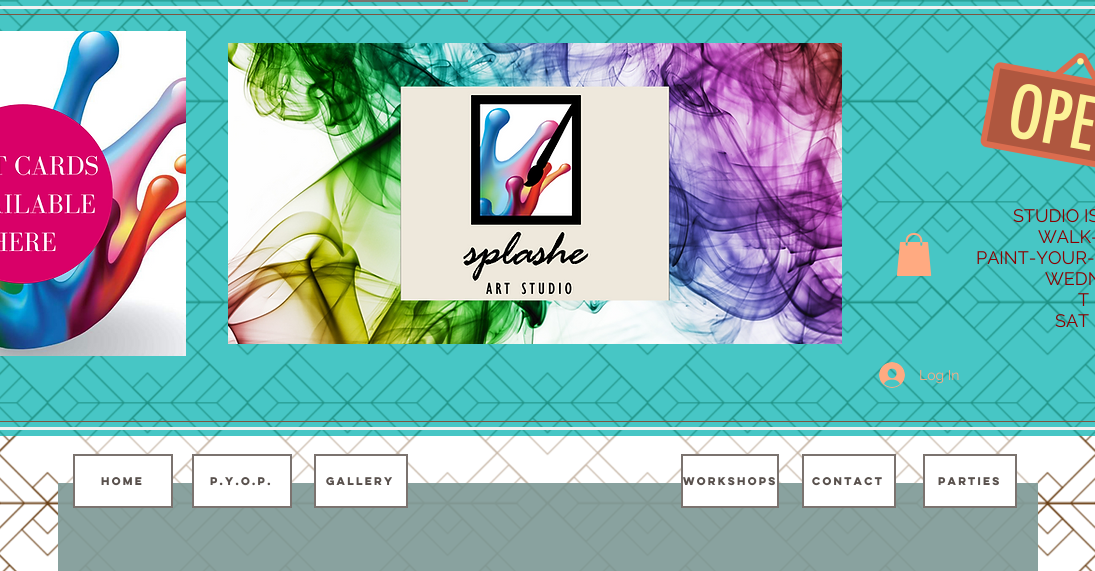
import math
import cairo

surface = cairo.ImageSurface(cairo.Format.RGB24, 1095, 571)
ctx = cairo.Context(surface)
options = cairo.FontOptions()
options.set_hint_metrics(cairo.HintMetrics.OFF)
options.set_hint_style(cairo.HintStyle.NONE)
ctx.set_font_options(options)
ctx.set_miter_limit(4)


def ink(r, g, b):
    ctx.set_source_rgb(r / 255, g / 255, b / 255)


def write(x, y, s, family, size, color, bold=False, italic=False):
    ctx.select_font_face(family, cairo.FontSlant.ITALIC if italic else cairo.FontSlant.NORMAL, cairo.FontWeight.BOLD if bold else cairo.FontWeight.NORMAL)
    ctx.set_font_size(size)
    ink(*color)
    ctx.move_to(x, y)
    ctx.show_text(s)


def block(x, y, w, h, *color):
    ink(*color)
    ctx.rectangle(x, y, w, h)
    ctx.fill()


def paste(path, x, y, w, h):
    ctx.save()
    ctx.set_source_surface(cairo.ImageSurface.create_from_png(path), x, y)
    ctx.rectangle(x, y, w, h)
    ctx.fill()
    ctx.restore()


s1 = dict(family="Raleway", size=18, color=(139, 0, 0))
s2 = dict(family="Raleway", size=14, color=(255, 170, 129))
s3 = dict(family="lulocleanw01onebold", size=10, color=(89, 81, 77), bold=True)

ink(255, 255, 255)
ctx.paint()
paste("pic1.png", 0, 0, 1095, 571)
ctx.set_source_rgba(0.004, 0.694, 0.686, 0.72)
ctx.rectangle(0, 0, 1095, 436)
ctx.fill()
block(0, 6, 1095, 3, 242, 242, 242)
block(0, 427, 1095, 3, 242, 242, 242)
block(0, 14, 1095, 1, 126, 85, 65)
block(0, 421, 1095, 1, 126, 85, 65)
ctx.rectangle(349, -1, 118, 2)
ink(123, 115, 111)
ctx.stroke()
paste("pic2.png", 0, 31, 186, 325)
paste("pic3.png", 228, 43, 614, 301)
paste("pic4.png", 980, 52, 115, 116)
paste("pic5.png", 896, 233, 36, 43)
write(1013, 222, "STUDIO IS", **s1)
write(1038, 243, "WALK-", **s1)
write(976, 264, "PAINT-YOUR-", **s1)
write(1045, 285, "WEDN", **s1)
write(1078, 306, "T", **s1)
write(1055, 327, "SAT", **s1)
paste("pic6.png", 879, 362, 26, 26)
write(919, 380, "Log In", **s2)
ctx.set_source_rgba(1, 1, 1, 0.6)
ctx.rectangle(58, 436, 980, 135)
ctx.fill()
ctx.set_source_rgba(0.459, 0.573, 0.557, 0.85)
ctx.rectangle(58, 483, 980, 88)
ctx.fill()
ink(255, 255, 255)
ctx.rectangle(74, 455, 98, 52)
ctx.fill_preserve()
ink(123, 115, 111)
ctx.stroke()
write(101, 485, "HOME", **s3)
ink(255, 255, 255)
ctx.rectangle(193, 455, 98, 52)
ctx.fill_preserve()
ink(123, 115, 111)
ctx.stroke()
write(210, 485, "P.Y.O.P.", **s3)
ink(255, 255, 255)
ctx.rectangle(315, 455, 92, 52)
ctx.fill_preserve()
ink(123, 115, 111)
ctx.stroke()
write(326, 485, "GALLERY", **s3)
ink(255, 255, 255)
ctx.rectangle(682, 455, 96, 52)
ctx.fill_preserve()
ink(123, 115, 111)
ctx.stroke()
write(683, 485, "WORKSHOPS", **s3)
ink(255, 255, 255)
ctx.rectangle(803, 455, 92, 52)
ctx.fill_preserve()
ink(123, 115, 111)
ctx.stroke()
write(812, 485, "CONTACT", **s3)
ink(255, 255, 255)
ctx.rectangle(924, 455, 92, 52)
ctx.fill_preserve()
ink(123, 115, 111)
ctx.stroke()
write(938, 485, "PARTIES", **s3)
surface.write_to_png("screenshot.png")
